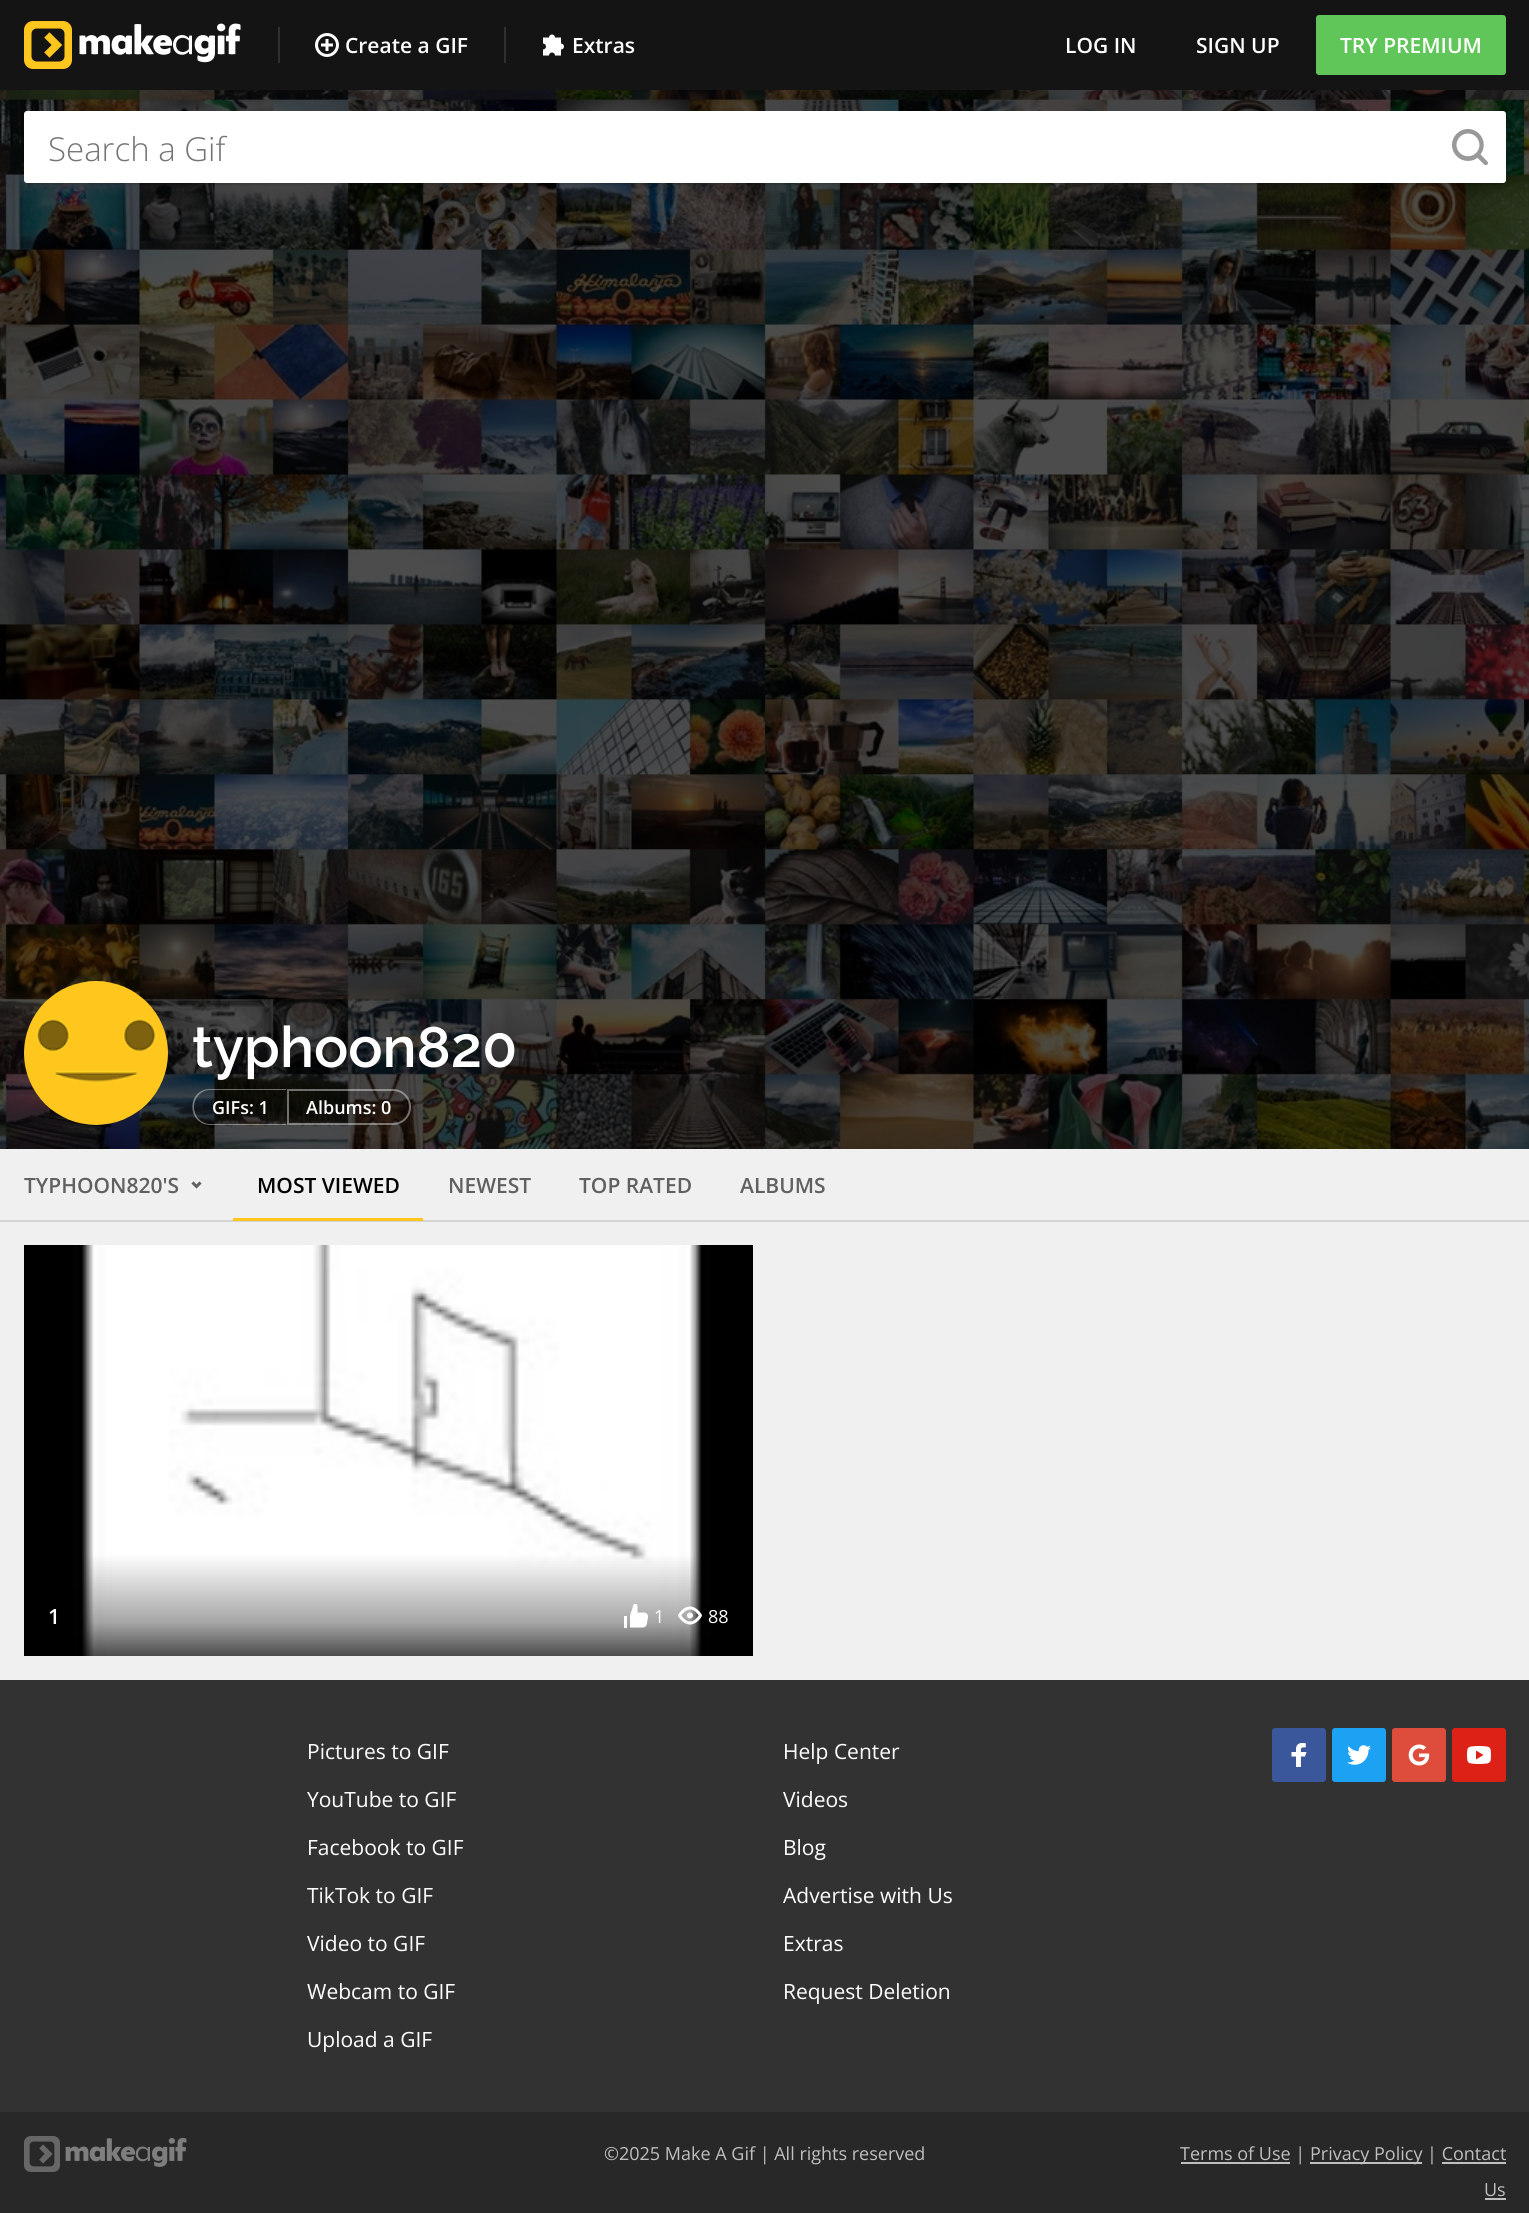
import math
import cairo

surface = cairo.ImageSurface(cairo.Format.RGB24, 1529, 2213)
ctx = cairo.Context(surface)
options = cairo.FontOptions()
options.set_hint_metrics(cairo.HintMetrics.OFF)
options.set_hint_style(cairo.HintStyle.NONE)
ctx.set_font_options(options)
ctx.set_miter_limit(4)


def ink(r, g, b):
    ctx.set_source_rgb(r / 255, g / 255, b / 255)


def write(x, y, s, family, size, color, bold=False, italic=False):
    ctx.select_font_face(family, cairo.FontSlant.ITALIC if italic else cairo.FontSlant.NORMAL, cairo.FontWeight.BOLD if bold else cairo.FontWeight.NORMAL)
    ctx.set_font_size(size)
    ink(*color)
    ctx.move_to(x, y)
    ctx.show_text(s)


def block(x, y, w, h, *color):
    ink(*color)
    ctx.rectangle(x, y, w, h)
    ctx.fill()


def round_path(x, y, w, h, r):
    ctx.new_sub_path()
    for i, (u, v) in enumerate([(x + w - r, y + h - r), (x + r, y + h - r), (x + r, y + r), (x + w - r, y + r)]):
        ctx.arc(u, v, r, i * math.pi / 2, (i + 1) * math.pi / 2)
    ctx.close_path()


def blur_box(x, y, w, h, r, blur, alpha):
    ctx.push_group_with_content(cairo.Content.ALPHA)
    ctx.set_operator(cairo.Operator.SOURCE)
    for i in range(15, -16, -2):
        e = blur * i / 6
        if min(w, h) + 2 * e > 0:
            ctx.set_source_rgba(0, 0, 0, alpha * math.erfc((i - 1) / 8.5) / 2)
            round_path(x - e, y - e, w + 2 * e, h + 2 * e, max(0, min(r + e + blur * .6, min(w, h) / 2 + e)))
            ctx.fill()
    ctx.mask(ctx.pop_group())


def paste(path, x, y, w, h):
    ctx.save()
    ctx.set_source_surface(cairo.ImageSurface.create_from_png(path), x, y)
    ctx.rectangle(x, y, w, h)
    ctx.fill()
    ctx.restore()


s1 = dict(family="Open Sans SemiBold", size=21, color=(255, 255, 255))
s2 = dict(family="Open Sans Light", size=33, color=(117, 117, 117))
s3 = dict(family="Raleway SemiBold", size=57, color=(255, 255, 255))
s4 = dict(family="Open Sans SemiBold", size=18, color=(255, 255, 255))
s5 = dict(family="Open Sans SemiBold", size=21, color=(96, 96, 96))
s6 = dict(family="Open Sans SemiBold", size=21, color=(0, 0, 0))
s7 = dict(family="Open Sans", size=18, color=(255, 255, 255))
s8 = dict(family="Open Sans", size=21, color=(255, 255, 255))
s9 = dict(family="Open Sans", size=18, color=(191, 191, 191))

ink(240, 240, 240)
ctx.paint()
block(0, 0, 1529, 90, 20, 20, 20)
paste("pic1.png", 24, 21, 217, 48)
block(278, 27, 2, 36, 48, 48, 48)
paste("pic2.png", 315, 33, 24, 24)
write(345, 53, "Create a GIF", **s1)
block(504, 27, 2, 36, 48, 48, 48)
paste("pic3.png", 543, 34, 21, 22)
write(572, 53, "Extras", **s1)
write(1065, 53, "LOG IN", **s1)
write(1196, 53, "SIGN UP", **s1)
ink(96, 198, 89)
round_path(1316, 15, 190, 60, 3)
ctx.fill()
write(1340, 53, "TRY PREMIUM", **s1)
paste("pic4.png", 0, 90, 1529, 1059)
ink(0, 0, 0)
blur_box(27, 119, 1476, 66, 0, 1, 0.15)
ink(255, 255, 255)
round_path(24, 111, 1482, 72, 3)
ctx.fill()
write(48, 161, "Search a Gif", **s2)
paste("pic5.png", 1452, 129, 36, 36)
paste("pic6.png", 24, 981, 144, 144)
write(192, 1067, "typhoon820", **s3)
ctx.set_source_rgba(1, 1, 1, 0.4)
ctx.set_fill_rule(cairo.FillRule.EVEN_ODD)
ctx.new_path()
ctx.move_to(210, 1089)
ctx.line_to(286, 1089)
ctx.line_to(286, 1125)
ctx.line_to(210, 1125)
ctx.curve_to(186, 1124, 187, 1089, 210, 1089)
ctx.close_path()
ctx.move_to(210, 1090)
ctx.line_to(286, 1090)
ctx.line_to(286, 1124)
ctx.line_to(210, 1124)
ctx.curve_to(201, 1124, 194, 1116, 194, 1107)
ctx.curve_to(194, 1098, 201, 1090, 210, 1090)
ctx.close_path()
ctx.fill()
write(212, 1114, "GIFs: 1", **s4)
ctx.new_path()
ctx.move_to(288, 1090)
ctx.line_to(393, 1090)
ctx.curve_to(402.5, 1090, 410, 1097.5, 410, 1107)
ctx.curve_to(410, 1116.5, 402.5, 1124, 393, 1124)
ctx.line_to(288, 1124)
ctx.close_path()
ctx.set_source_rgba(1, 1, 1, 0.4)
ctx.stroke()
write(306, 1114, "Albums: 0", **s4)
block(0, 1220, 1529, 2, 211, 211, 211)
write(24, 1193, "TYPHOON820'S", **s5)
paste("pic7.png", 191, 1181, 11, 8)
block(233, 1218, 190, 3, 255, 198, 30)
write(257, 1193, "MOST VIEWED", **s6)
write(448, 1193, "NEWEST", **s5)
write(579, 1193, "TOP RATED", **s5)
write(740, 1193, "ALBUMS", **s5)
paste("pic8.png", 24, 1245, 729, 411)
write(48, 1624, "1", **s1)
paste("pic9.png", 624, 1604, 24, 24)
write(654, 1623, "1", **s7)
paste("pic10.png", 678, 1606, 24, 19)
write(708, 1623, "88", **s7)
block(0, 1680, 1529, 432, 50, 50, 50)
write(307, 1759, "Pictures to GIF", **s8)
write(307, 1807, "YouTube to GIF", **s8)
write(307, 1855, "Facebook to GIF", **s8)
write(307, 1903, "TikTok to GIF", **s8)
write(307, 1951, "Video to GIF", **s8)
write(307, 1999, "Webcam to GIF", **s8)
write(307, 2047, "Upload a GIF", **s8)
write(783, 1759, "Help Center", **s8)
write(783, 1807, "Videos", **s8)
write(783, 1855, "Blog", **s8)
write(783, 1903, "Advertise with Us", **s8)
write(783, 1951, "Extras", **s8)
write(783, 1999, "Request Deletion", **s8)
ink(57, 87, 154)
round_path(1272, 1728, 54, 54, 3)
ctx.fill()
paste("pic11.png", 1291, 1743, 16, 24)
ink(29, 161, 242)
round_path(1332, 1728, 54, 54, 3)
ctx.fill()
paste("pic12.png", 1347, 1745, 24, 20)
ink(222, 77, 59)
round_path(1392, 1728, 54, 54, 3)
ctx.fill()
paste("pic13.png", 1408, 1744, 22, 22)
ink(220, 34, 23)
round_path(1452, 1728, 54, 54, 3)
ctx.fill()
paste("pic14.png", 1467, 1746, 24, 18)
block(0, 2112, 1529, 101, 40, 40, 40)
paste("pic15.png", 24, 2136, 163, 36)
write(604, 2160, "©2025 Make A Gif | All rights reserved", **s9)
block(1181, 2162, 109, 2, 191, 191, 191)
write(1180, 2160, "Terms of Use |", **s9)
block(1310, 2162, 112, 2, 191, 191, 191)
write(1310, 2160, "Privacy Policy | Contact", **s9)
write(1484, 2196, "Us", **s9)
block(1442, 2162, 64, 2, 191, 191, 191)
block(1485, 2198, 21, 2, 191, 191, 191)
surface.write_to_png("screenshot.png")
